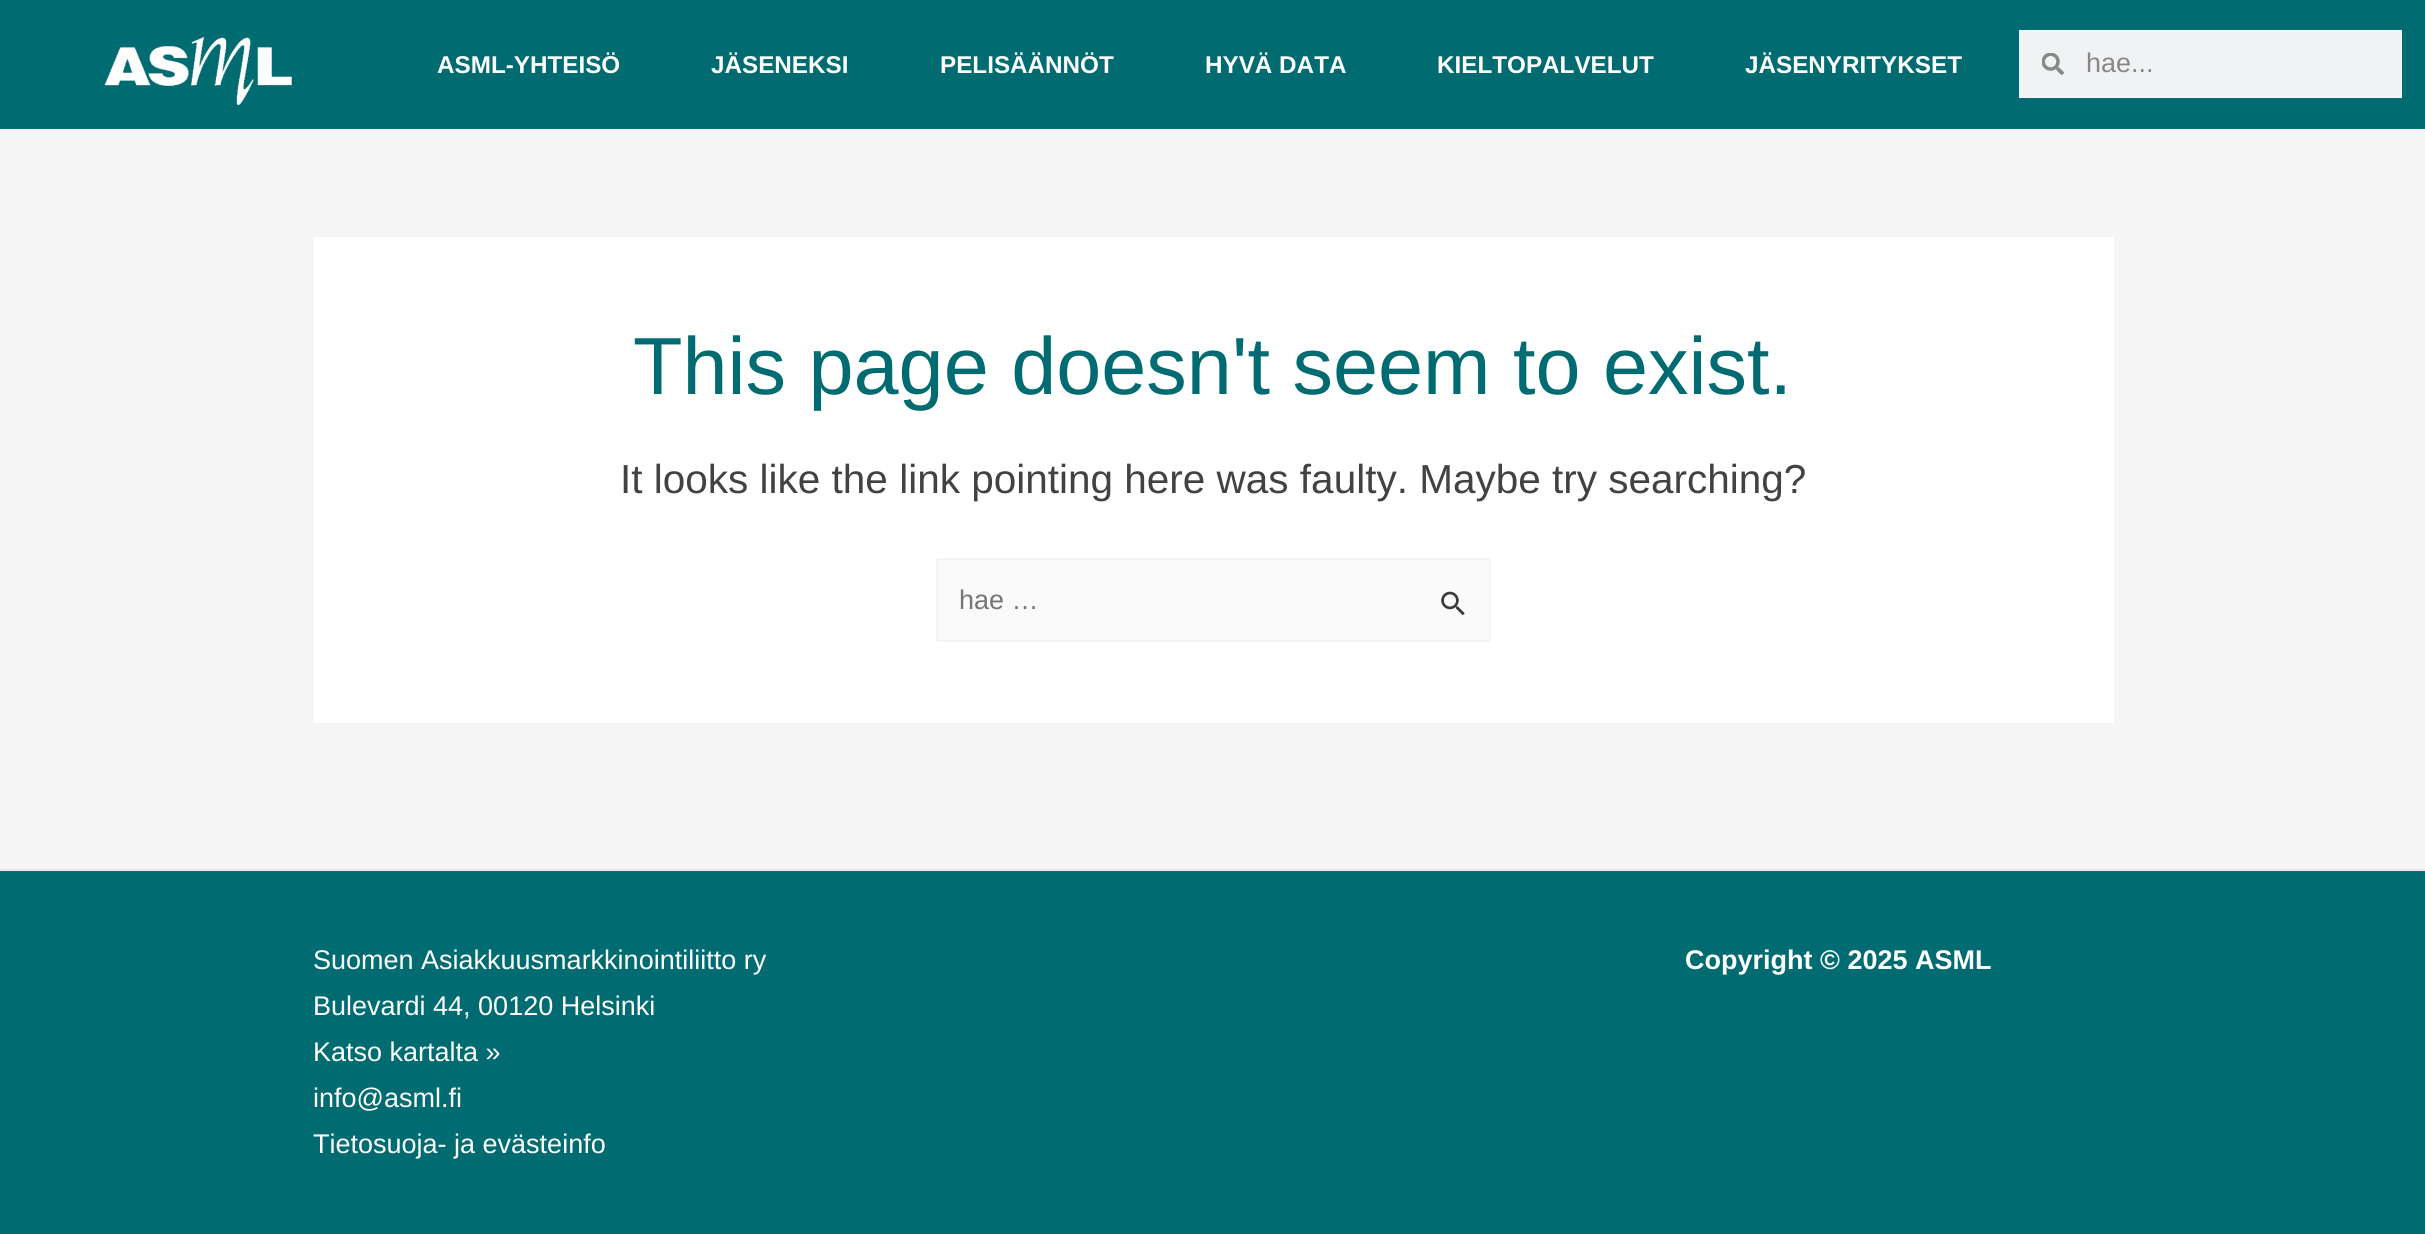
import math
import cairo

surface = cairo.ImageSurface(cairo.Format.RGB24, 2425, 1234)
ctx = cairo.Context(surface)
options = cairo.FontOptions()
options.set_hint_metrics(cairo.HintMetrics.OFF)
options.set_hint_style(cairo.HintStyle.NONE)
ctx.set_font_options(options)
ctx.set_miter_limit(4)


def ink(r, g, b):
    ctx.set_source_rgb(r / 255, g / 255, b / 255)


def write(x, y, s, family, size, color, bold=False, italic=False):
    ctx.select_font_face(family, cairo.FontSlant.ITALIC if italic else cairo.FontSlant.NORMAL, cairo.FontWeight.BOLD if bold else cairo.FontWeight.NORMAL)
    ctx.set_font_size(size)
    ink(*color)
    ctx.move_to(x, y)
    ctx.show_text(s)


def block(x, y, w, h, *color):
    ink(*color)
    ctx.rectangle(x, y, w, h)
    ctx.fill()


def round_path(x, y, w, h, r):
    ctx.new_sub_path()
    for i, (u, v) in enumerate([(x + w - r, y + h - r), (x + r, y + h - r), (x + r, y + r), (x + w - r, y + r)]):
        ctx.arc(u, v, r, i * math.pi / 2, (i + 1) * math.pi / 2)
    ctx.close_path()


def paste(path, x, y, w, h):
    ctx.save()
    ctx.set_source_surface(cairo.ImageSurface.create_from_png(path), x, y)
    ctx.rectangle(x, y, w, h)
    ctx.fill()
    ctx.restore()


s1 = dict(family="Liberation Sans", size=24.25, color=(255, 255, 255), bold=True)
s2 = dict(family="Liberation Sans", size=27, color=(136, 136, 137))
s3 = dict(family="Liberation Sans", size=81, color=(0, 107, 112))
s4 = dict(family="Liberation Sans", size=40.5, color=(66, 66, 66))
s5 = dict(family="Liberation Sans", size=27, color=(117, 117, 117))
s6 = dict(family="Liberation Sans", size=27, color=(255, 255, 255))
s7 = dict(family="Liberation Sans", size=27, color=(255, 255, 255), bold=True)

ink(245, 245, 245)
ctx.paint()
block(0, 0, 2425, 129, 0, 107, 112)
paste("pic1.png", 104, 37, 188, 69)
write(437, 73, "ASML-YHTEISÖ", **s1)
write(711, 73, "JÄSENEKSI", **s1)
write(940, 73, "PELISÄÄNNÖT", **s1)
write(1205, 73, "HYVÄ DATA", **s1)
write(1437, 73, "KIELTOPALVELUT", **s1)
write(1745, 73, "JÄSENYRITYKSET", **s1)
block(2019, 30, 383, 68, 241, 242, 243)
paste("pic2.png", 2042, 53, 22, 22)
write(2086, 72, "hae...", **s2)
block(314, 237, 1800, 486, 255, 255, 255)
write(633, 394, "This page doesn't seem to exist.", **s3)
write(620, 493, "It looks like the link pointing here was faulty. Maybe try searching?", **s4)
ink(250, 250, 250)
round_path(937, 559, 553, 82, 2)
ctx.fill_preserve()
ink(242, 245, 247)
ctx.stroke()
write(959, 609, "hae …", **s5)
paste("pic3.png", 1441, 591, 24, 25)
block(0, 871, 2425, 363, 0, 107, 112)
block(0, 869, 2425, 2, 230, 230, 230)
write(313, 969, "Suomen Asiakkuusmarkkinointiliitto ry", **s6)
write(313, 1015, "Bulevardi 44, 00120 Helsinki", **s6)
write(313, 1061, "Katso kartalta »", **s6)
write(313, 1107, "info@asml.fi", **s6)
write(313, 1153, "Tietosuoja- ja evästeinfo", **s6)
write(1685, 969, "Copyright © 2025 ASML", **s7)
surface.write_to_png("screenshot.png")
